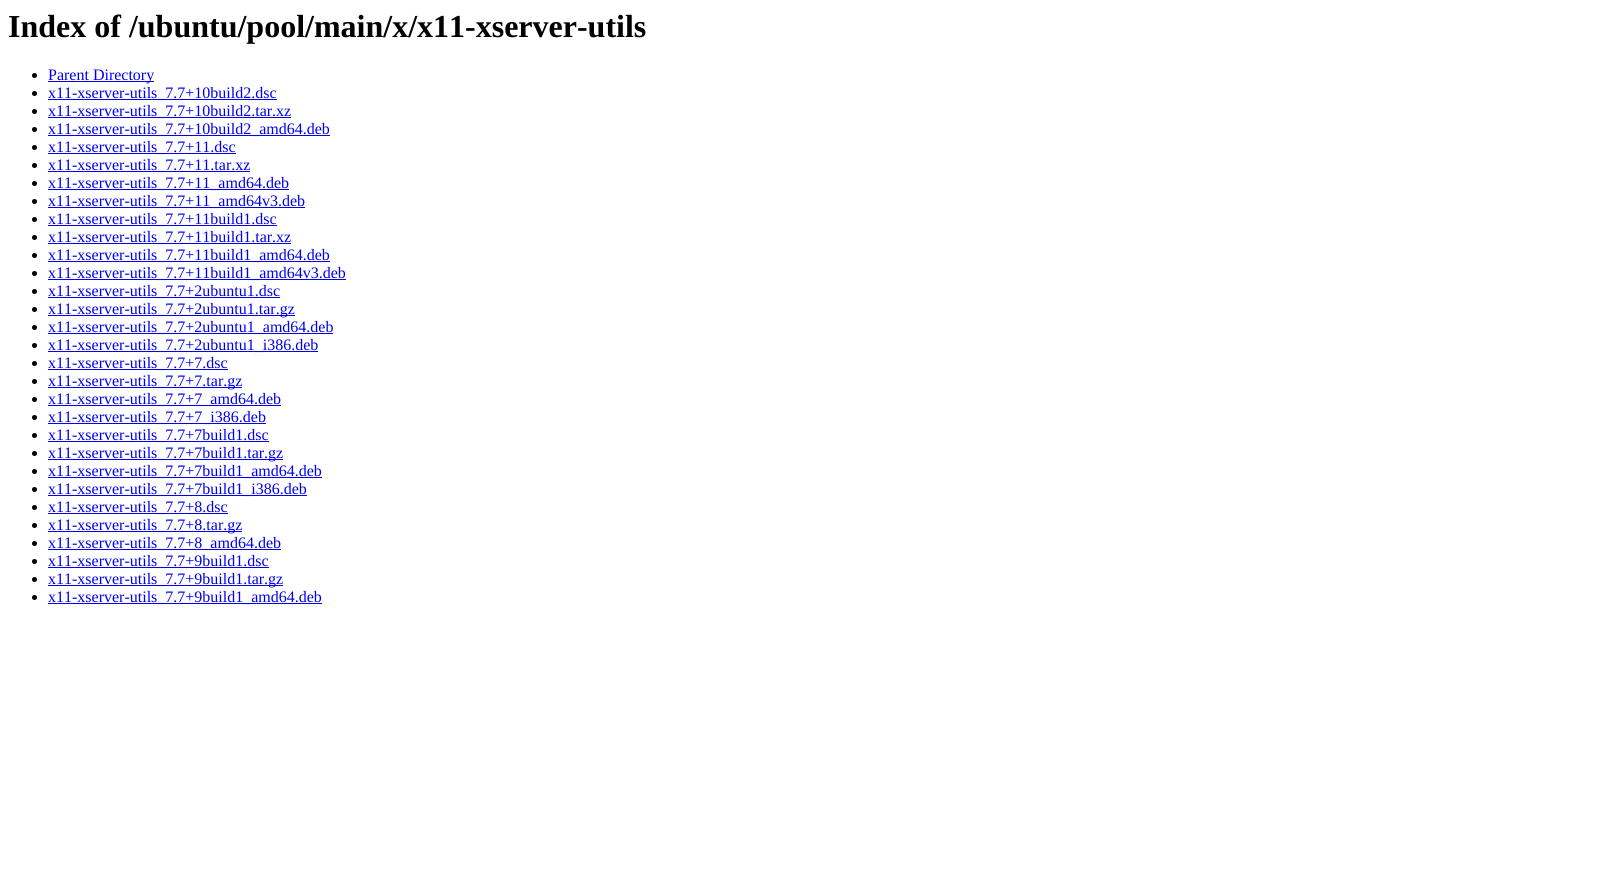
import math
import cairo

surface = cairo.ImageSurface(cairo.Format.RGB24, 1621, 894)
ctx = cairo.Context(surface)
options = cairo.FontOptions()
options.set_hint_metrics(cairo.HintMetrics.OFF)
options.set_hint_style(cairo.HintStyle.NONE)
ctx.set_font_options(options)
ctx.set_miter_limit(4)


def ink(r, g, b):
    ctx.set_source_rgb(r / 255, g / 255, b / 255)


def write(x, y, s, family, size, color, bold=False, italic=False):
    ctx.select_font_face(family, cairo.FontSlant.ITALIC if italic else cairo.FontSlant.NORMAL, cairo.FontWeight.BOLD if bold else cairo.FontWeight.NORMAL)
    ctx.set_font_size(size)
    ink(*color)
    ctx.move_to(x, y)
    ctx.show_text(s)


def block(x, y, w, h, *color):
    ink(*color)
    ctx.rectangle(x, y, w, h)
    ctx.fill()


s1 = dict(family="Liberation Serif", size=32, color=(0, 0, 0), bold=True)
s2 = dict(family="Liberation Serif", size=16, color=(0, 0, 238))

ink(255, 255, 255)
ctx.paint()
write(8, 37, "Index of /ubuntu/pool/main/x/x11-xserver-utils", **s1)
ctx.new_path()
ctx.arc(34.5, 75.5, 2.5, 0, 2 * math.pi)
ctx.fill()
block(48, 81, 106, 1, 0, 0, 238)
write(48, 80, "Parent Directory", **s2)
ink(0, 0, 0)
ctx.new_path()
ctx.arc(34.5, 93.5, 2.5, 0, 2 * math.pi)
ctx.fill()
block(48, 99, 229, 1, 0, 0, 238)
write(48, 98, "x11-xserver-utils_7.7+10build2.dsc", **s2)
ink(0, 0, 0)
ctx.new_path()
ctx.arc(34.5, 111.5, 2.5, 0, 2 * math.pi)
ctx.fill()
block(48, 117, 243, 1, 0, 0, 238)
write(48, 116, "x11-xserver-utils_7.7+10build2.tar.xz", **s2)
ink(0, 0, 0)
ctx.new_path()
ctx.arc(34.5, 129.5, 2.5, 0, 2 * math.pi)
ctx.fill()
block(48, 135, 282, 1, 0, 0, 238)
write(48, 134, "x11-xserver-utils_7.7+10build2_amd64.deb", **s2)
ink(0, 0, 0)
ctx.new_path()
ctx.arc(34.5, 147.5, 2.5, 0, 2 * math.pi)
ctx.fill()
block(48, 153, 188, 1, 0, 0, 238)
write(48, 152, "x11-xserver-utils_7.7+11.dsc", **s2)
ink(0, 0, 0)
ctx.new_path()
ctx.arc(34.5, 165.5, 2.5, 0, 2 * math.pi)
ctx.fill()
block(48, 171, 202, 1, 0, 0, 238)
write(48, 170, "x11-xserver-utils_7.7+11.tar.xz", **s2)
ink(0, 0, 0)
ctx.new_path()
ctx.arc(34.5, 183.5, 2.5, 0, 2 * math.pi)
ctx.fill()
block(48, 189, 241, 1, 0, 0, 238)
write(48, 188, "x11-xserver-utils_7.7+11_amd64.deb", **s2)
ink(0, 0, 0)
ctx.new_path()
ctx.arc(34.5, 201.5, 2.5, 0, 2 * math.pi)
ctx.fill()
block(48, 207, 257, 1, 0, 0, 238)
write(48, 206, "x11-xserver-utils_7.7+11_amd64v3.deb", **s2)
ink(0, 0, 0)
ctx.new_path()
ctx.arc(34.5, 219.5, 2.5, 0, 2 * math.pi)
ctx.fill()
block(48, 225, 229, 1, 0, 0, 238)
write(48, 224, "x11-xserver-utils_7.7+11build1.dsc", **s2)
ink(0, 0, 0)
ctx.new_path()
ctx.arc(34.5, 237.5, 2.5, 0, 2 * math.pi)
ctx.fill()
block(48, 243, 243, 1, 0, 0, 238)
write(48, 242, "x11-xserver-utils_7.7+11build1.tar.xz", **s2)
ink(0, 0, 0)
ctx.new_path()
ctx.arc(34.5, 255.5, 2.5, 0, 2 * math.pi)
ctx.fill()
block(48, 261, 282, 1, 0, 0, 238)
write(48, 260, "x11-xserver-utils_7.7+11build1_amd64.deb", **s2)
ink(0, 0, 0)
ctx.new_path()
ctx.arc(34.5, 273.5, 2.5, 0, 2 * math.pi)
ctx.fill()
block(48, 279, 298, 1, 0, 0, 238)
write(48, 278, "x11-xserver-utils_7.7+11build1_amd64v3.deb", **s2)
ink(0, 0, 0)
ctx.new_path()
ctx.arc(34.5, 291.5, 2.5, 0, 2 * math.pi)
ctx.fill()
block(48, 297, 232, 1, 0, 0, 238)
write(48, 296, "x11-xserver-utils_7.7+2ubuntu1.dsc", **s2)
ink(0, 0, 0)
ctx.new_path()
ctx.arc(34.5, 309.5, 2.5, 0, 2 * math.pi)
ctx.fill()
block(48, 315, 247, 1, 0, 0, 238)
write(48, 314, "x11-xserver-utils_7.7+2ubuntu1.tar.gz", **s2)
ink(0, 0, 0)
ctx.new_path()
ctx.arc(34.5, 327.5, 2.5, 0, 2 * math.pi)
ctx.fill()
block(48, 333, 285, 1, 0, 0, 238)
write(48, 332, "x11-xserver-utils_7.7+2ubuntu1_amd64.deb", **s2)
ink(0, 0, 0)
ctx.new_path()
ctx.arc(34.5, 345.5, 2.5, 0, 2 * math.pi)
ctx.fill()
block(48, 351, 270, 1, 0, 0, 238)
write(48, 350, "x11-xserver-utils_7.7+2ubuntu1_i386.deb", **s2)
ink(0, 0, 0)
ctx.new_path()
ctx.arc(34.5, 363.5, 2.5, 0, 2 * math.pi)
ctx.fill()
block(48, 369, 180, 1, 0, 0, 238)
write(48, 368, "x11-xserver-utils_7.7+7.dsc", **s2)
ink(0, 0, 0)
ctx.new_path()
ctx.arc(34.5, 381.5, 2.5, 0, 2 * math.pi)
ctx.fill()
block(48, 387, 194, 1, 0, 0, 238)
write(48, 386, "x11-xserver-utils_7.7+7.tar.gz", **s2)
ink(0, 0, 0)
ctx.new_path()
ctx.arc(34.5, 399.5, 2.5, 0, 2 * math.pi)
ctx.fill()
block(48, 405, 233, 1, 0, 0, 238)
write(48, 404, "x11-xserver-utils_7.7+7_amd64.deb", **s2)
ink(0, 0, 0)
ctx.new_path()
ctx.arc(34.5, 417.5, 2.5, 0, 2 * math.pi)
ctx.fill()
block(48, 423, 218, 1, 0, 0, 238)
write(48, 422, "x11-xserver-utils_7.7+7_i386.deb", **s2)
ink(0, 0, 0)
ctx.new_path()
ctx.arc(34.5, 435.5, 2.5, 0, 2 * math.pi)
ctx.fill()
block(48, 441, 221, 1, 0, 0, 238)
write(48, 440, "x11-xserver-utils_7.7+7build1.dsc", **s2)
ink(0, 0, 0)
ctx.new_path()
ctx.arc(34.5, 453.5, 2.5, 0, 2 * math.pi)
ctx.fill()
block(48, 459, 235, 1, 0, 0, 238)
write(48, 458, "x11-xserver-utils_7.7+7build1.tar.gz", **s2)
ink(0, 0, 0)
ctx.new_path()
ctx.arc(34.5, 471.5, 2.5, 0, 2 * math.pi)
ctx.fill()
block(48, 477, 274, 1, 0, 0, 238)
write(48, 476, "x11-xserver-utils_7.7+7build1_amd64.deb", **s2)
ink(0, 0, 0)
ctx.new_path()
ctx.arc(34.5, 489.5, 2.5, 0, 2 * math.pi)
ctx.fill()
block(48, 495, 259, 1, 0, 0, 238)
write(48, 494, "x11-xserver-utils_7.7+7build1_i386.deb", **s2)
ink(0, 0, 0)
ctx.new_path()
ctx.arc(34.5, 507.5, 2.5, 0, 2 * math.pi)
ctx.fill()
block(48, 513, 180, 1, 0, 0, 238)
write(48, 512, "x11-xserver-utils_7.7+8.dsc", **s2)
ink(0, 0, 0)
ctx.new_path()
ctx.arc(34.5, 525.5, 2.5, 0, 2 * math.pi)
ctx.fill()
block(48, 531, 194, 1, 0, 0, 238)
write(48, 530, "x11-xserver-utils_7.7+8.tar.gz", **s2)
ink(0, 0, 0)
ctx.new_path()
ctx.arc(34.5, 543.5, 2.5, 0, 2 * math.pi)
ctx.fill()
block(48, 549, 233, 1, 0, 0, 238)
write(48, 548, "x11-xserver-utils_7.7+8_amd64.deb", **s2)
ink(0, 0, 0)
ctx.new_path()
ctx.arc(34.5, 561.5, 2.5, 0, 2 * math.pi)
ctx.fill()
block(48, 567, 221, 1, 0, 0, 238)
write(48, 566, "x11-xserver-utils_7.7+9build1.dsc", **s2)
ink(0, 0, 0)
ctx.new_path()
ctx.arc(34.5, 579.5, 2.5, 0, 2 * math.pi)
ctx.fill()
block(48, 585, 235, 1, 0, 0, 238)
write(48, 584, "x11-xserver-utils_7.7+9build1.tar.gz", **s2)
ink(0, 0, 0)
ctx.new_path()
ctx.arc(34.5, 597.5, 2.5, 0, 2 * math.pi)
ctx.fill()
block(48, 603, 274, 1, 0, 0, 238)
write(48, 602, "x11-xserver-utils_7.7+9build1_amd64.deb", **s2)
surface.write_to_png("screenshot.png")
